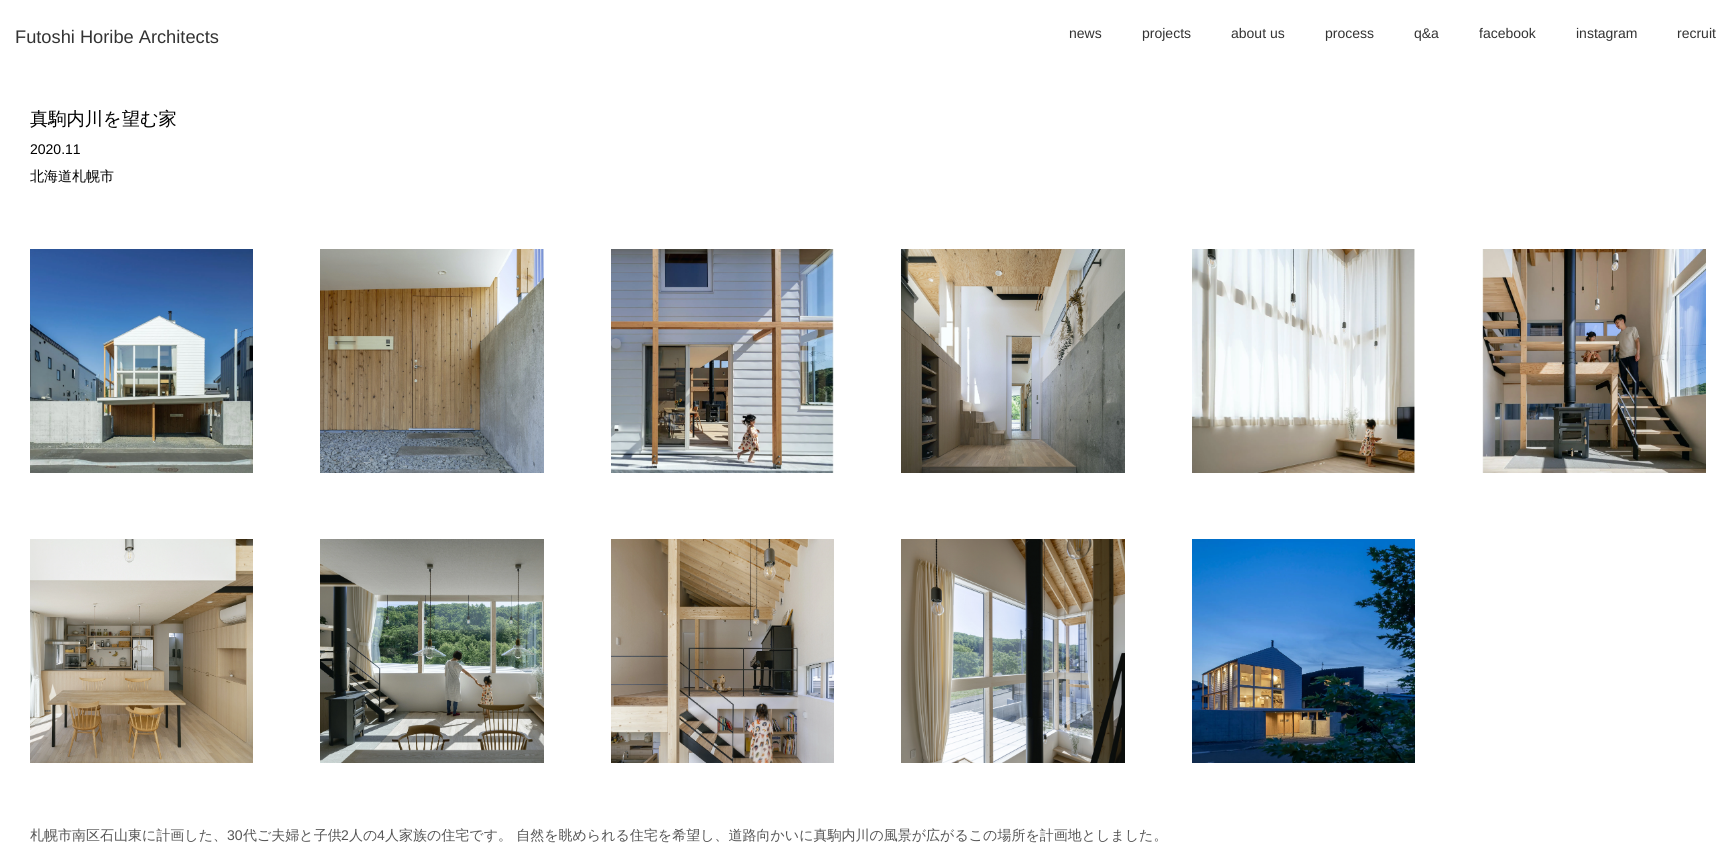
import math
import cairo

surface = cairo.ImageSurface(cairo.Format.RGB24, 1736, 852)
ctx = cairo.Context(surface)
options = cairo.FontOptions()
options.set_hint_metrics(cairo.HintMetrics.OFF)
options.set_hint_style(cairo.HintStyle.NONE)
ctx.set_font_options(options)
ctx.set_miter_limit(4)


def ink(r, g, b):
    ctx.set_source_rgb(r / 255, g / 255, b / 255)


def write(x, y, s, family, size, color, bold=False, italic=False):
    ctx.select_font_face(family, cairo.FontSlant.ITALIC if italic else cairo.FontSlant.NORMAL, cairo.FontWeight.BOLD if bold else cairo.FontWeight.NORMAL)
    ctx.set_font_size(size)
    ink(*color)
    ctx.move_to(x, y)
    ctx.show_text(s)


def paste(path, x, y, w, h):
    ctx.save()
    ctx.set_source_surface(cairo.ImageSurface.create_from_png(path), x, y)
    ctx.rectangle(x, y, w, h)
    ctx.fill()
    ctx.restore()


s1 = dict(family="Liberation Sans", size=18.25, color=(51, 51, 51))
s2 = dict(family="Liberation Sans", size=14, color=(51, 51, 51))
s3 = dict(family="WenQuanYi Zen Hei Medium", size=18.25, color=(0, 0, 0))
s4 = dict(family="Liberation Sans", size=14, color=(0, 0, 0))
s5 = dict(family="WenQuanYi Zen Hei Medium", size=14, color=(0, 0, 0))
s6 = dict(family="WenQuanYi Zen Hei Medium", size=14, color=(85, 85, 85))
s7 = dict(family="Liberation Sans", size=14, color=(85, 85, 85))

ink(255, 255, 255)
ctx.paint()
write(15, 43, "Futoshi Horibe Architects", **s1)
write(1069, 38, "news", **s2)
write(1142, 38, "projects", **s2)
write(1231, 38, "about us", **s2)
write(1325, 38, "process", **s2)
write(1414, 38, "q&a", **s2)
write(1479, 38, "facebook", **s2)
write(1576, 38, "instagram", **s2)
write(1677, 38, "recruit", **s2)
write(30, 125, "真駒内川を望む家", **s3)
write(30, 154, "2020.11", **s4)
write(30, 181, "北海道札幌市", **s5)
paste("pic1.png", 30, 249, 223, 224)
paste("pic2.png", 320, 249, 224, 224)
paste("pic3.png", 611, 249, 223, 224)
paste("pic4.png", 901, 249, 224, 224)
paste("pic5.png", 1192, 249, 223, 224)
paste("pic6.png", 1482, 249, 224, 224)
paste("pic7.png", 30, 539, 223, 224)
paste("pic8.png", 320, 539, 224, 224)
paste("pic9.png", 611, 539, 223, 224)
paste("pic10.png", 901, 539, 224, 224)
paste("pic11.png", 1192, 539, 223, 224)
write(30, 840, "札幌市南区石山東に計画した、", **s6)
write(227, 840, "30", **s7)
write(243, 840, "代ご夫婦と子供", **s6)
write(341, 840, "2", **s7)
write(349, 840, "人の", **s6)
write(377, 840, "4", **s7)
write(385, 840, "人家族の住宅です。 自然を眺められる住宅を希望し、道路向かいに真駒内川の風景が広がるこの場所を計画地としました。", **s6)
surface.write_to_png("screenshot.png")
